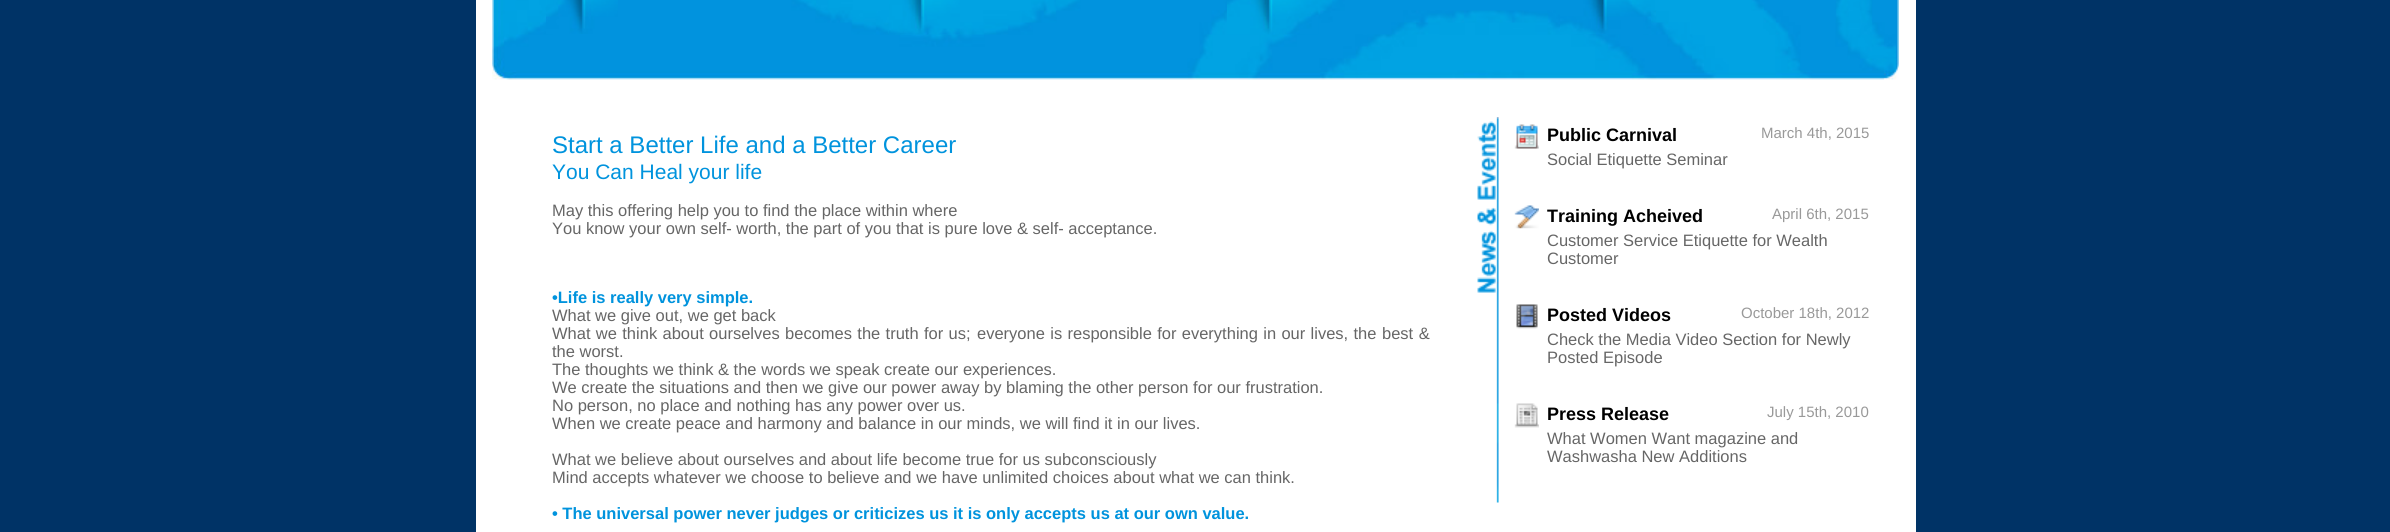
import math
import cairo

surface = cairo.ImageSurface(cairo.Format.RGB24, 2390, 532)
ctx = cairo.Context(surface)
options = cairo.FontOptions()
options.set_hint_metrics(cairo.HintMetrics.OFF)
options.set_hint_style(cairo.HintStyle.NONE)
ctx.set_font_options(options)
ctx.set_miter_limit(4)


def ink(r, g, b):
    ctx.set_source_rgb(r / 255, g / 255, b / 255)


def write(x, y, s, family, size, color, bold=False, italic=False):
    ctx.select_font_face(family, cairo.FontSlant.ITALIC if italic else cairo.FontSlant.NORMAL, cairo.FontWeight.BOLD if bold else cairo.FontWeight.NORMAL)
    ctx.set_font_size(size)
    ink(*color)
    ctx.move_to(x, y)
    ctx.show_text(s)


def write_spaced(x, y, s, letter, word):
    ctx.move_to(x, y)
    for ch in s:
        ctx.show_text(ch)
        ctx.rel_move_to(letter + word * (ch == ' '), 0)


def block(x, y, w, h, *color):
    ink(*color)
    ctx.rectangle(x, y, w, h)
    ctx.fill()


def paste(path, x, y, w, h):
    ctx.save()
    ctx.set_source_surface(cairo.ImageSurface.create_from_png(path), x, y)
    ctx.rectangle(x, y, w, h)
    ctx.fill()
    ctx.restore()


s1 = dict(family="Liberation Sans", size=24, color=(0, 147, 221))
s2 = dict(family="Liberation Sans", size=21, color=(0, 147, 221))
s3 = dict(family="Liberation Sans", size=16.5, color=(102, 102, 102))
s4 = dict(family="Liberation Sans", size=16.5, color=(0, 147, 221), bold=True)
s5 = dict(family="Liberation Sans", size=18, color=(0, 0, 0), bold=True)
s6 = dict(family="Liberation Sans", size=15, color=(153, 153, 153))

ink(0, 51, 102)
ctx.paint()
block(476, 0, 1440, 532, 255, 255, 255)
paste("pic1.png", 492, 0, 1407, 80)
paste("pic2.png", 546, 0, 72, 34)
paste("pic3.png", 889, 0, 71, 35)
paste("pic4.png", 1227, 0, 92, 35)
paste("pic5.png", 1560, 0, 91, 34)
write(552, 153, "Start a Better Life and a Better Career", **s1)
write(552, 179, "You Can Heal your life", **s2)
write(552, 216, "May this offering help you to find the place within where", **s3)
write(552, 234, "You know your own self- worth, the part of you that is pure love & self- acceptance.", **s3)
write(552, 303, "•Life is really very simple.", **s4)
write(552, 321, "What we give out, we get back", **s3)
write_spaced(552, 339, "What we think about ourselves becomes the truth for us;", 0, 0.75)
write_spaced(977, 339, "everyone is responsible for everything in our lives, the", 0, 0.75)
write_spaced(1382, 339, "best &", 0, 1)
write(552, 357, "the worst.", **s3)
write(552, 375, "The thoughts we think & the words we speak create our experiences.", **s3)
write(552, 393, "We create the situations and then we give our power away by blaming the other person for our frustration.", **s3)
write(552, 411, "No person, no place and nothing has any power over us.", **s3)
write(552, 429, "When we create peace and harmony and balance in our minds, we will find it in our lives.", **s3)
write(552, 465, "What we believe about ourselves and about life become true for us subconsciously", **s3)
write(552, 483, "Mind accepts whatever we choose to believe and we have unlimited choices about what we can think.", **s3)
write(552, 519, "• The universal power never judges or criticizes us it is only accepts us at our own value.", **s4)
paste("pic6.png", 1477, 117, 22, 386)
paste("pic7.png", 1514, 124, 25, 25)
write(1547, 141, "Public Carnival", **s5)
write(1761, 138, "March 4th, 2015", **s6)
write(1547, 165, "Social Etiquette Seminar", **s3)
paste("pic8.png", 1514, 205, 25, 24)
write(1547, 222, "Training Acheived", **s5)
write(1772, 219, "April 6th, 2015", **s6)
write(1547, 246, "Customer Service Etiquette for Wealth", **s3)
write(1547, 264, "Customer", **s3)
paste("pic9.png", 1516, 304, 22, 25)
write(1547, 321, "Posted Videos", **s5)
write(1741, 318, "October 18th, 2012", **s6)
write(1547, 345, "Check the Media Video Section for Newly", **s3)
write(1547, 363, "Posted Episode", **s3)
paste("pic10.png", 1514, 403, 25, 25)
write(1547, 420, "Press Release", **s5)
write(1767, 417, "July 15th, 2010", **s6)
write(1547, 444, "What Women Want magazine and", **s3)
write(1547, 462, "Washwasha New Additions", **s3)
surface.write_to_png("screenshot.png")
